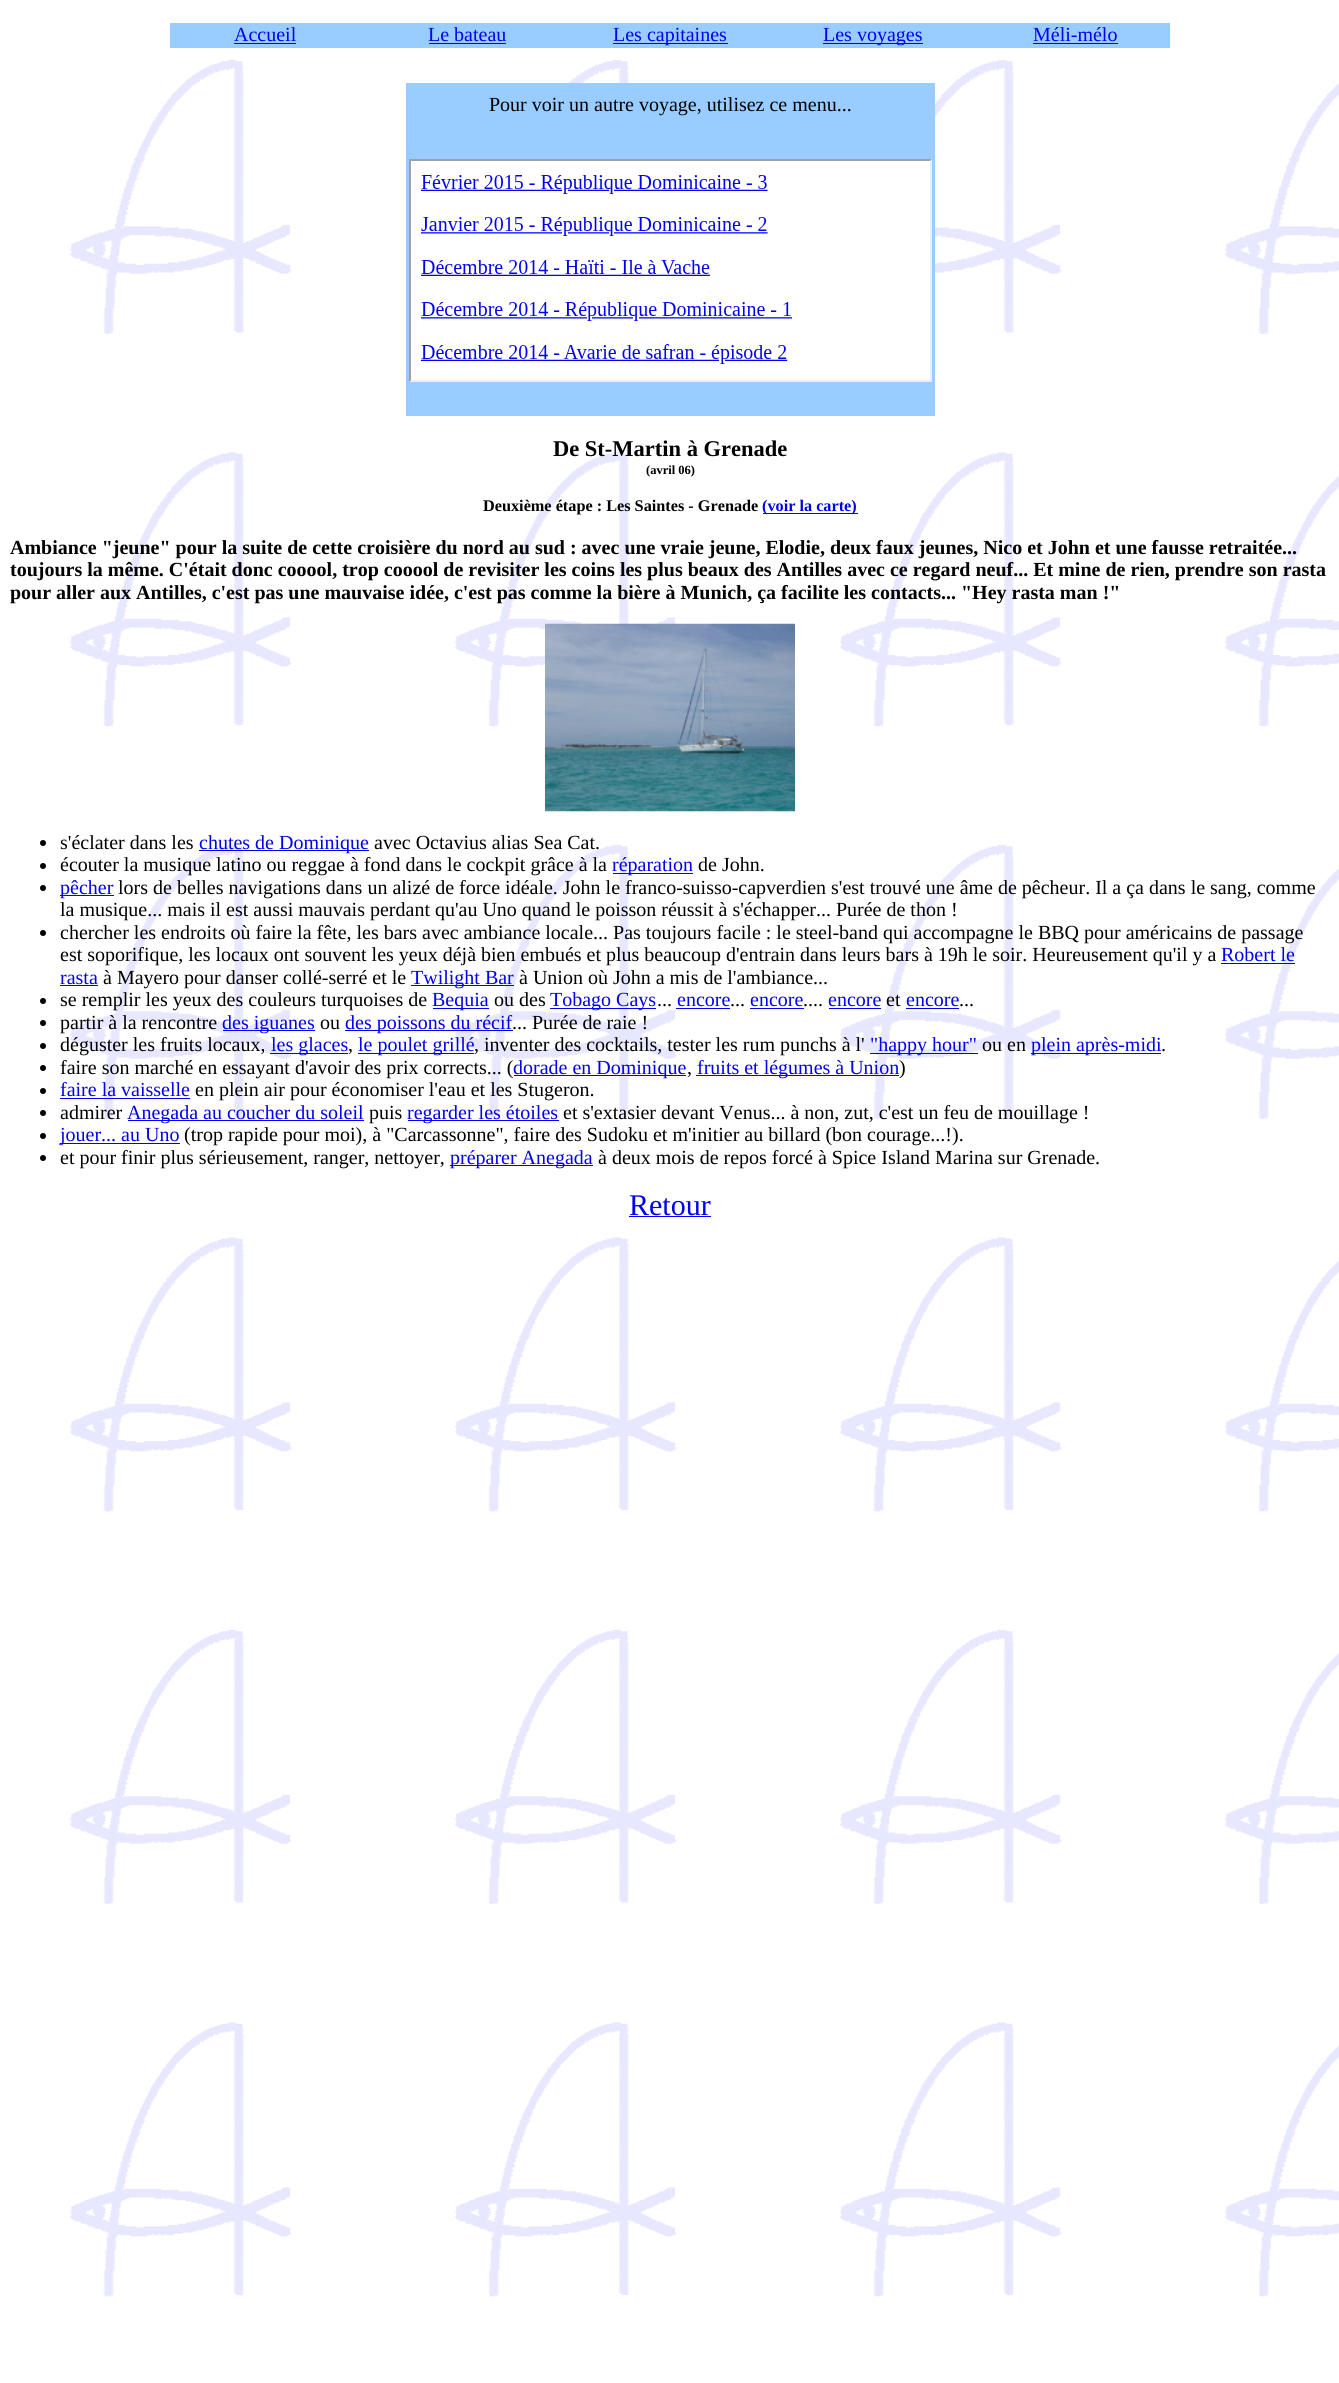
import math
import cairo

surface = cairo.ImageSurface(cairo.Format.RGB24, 1339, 2383)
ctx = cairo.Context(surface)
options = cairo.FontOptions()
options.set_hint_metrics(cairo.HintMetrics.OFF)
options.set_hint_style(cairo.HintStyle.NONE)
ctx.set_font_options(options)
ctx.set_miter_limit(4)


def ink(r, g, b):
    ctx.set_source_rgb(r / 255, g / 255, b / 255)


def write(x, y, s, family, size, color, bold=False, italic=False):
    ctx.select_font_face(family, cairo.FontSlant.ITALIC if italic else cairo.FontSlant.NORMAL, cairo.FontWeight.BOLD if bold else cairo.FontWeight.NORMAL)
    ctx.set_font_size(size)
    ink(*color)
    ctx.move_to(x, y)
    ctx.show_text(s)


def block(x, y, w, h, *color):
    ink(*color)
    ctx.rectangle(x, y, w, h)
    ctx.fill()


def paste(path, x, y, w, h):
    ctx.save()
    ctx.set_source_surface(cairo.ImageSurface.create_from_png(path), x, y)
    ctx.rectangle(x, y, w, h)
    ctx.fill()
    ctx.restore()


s1 = dict(family="Liberation Serif", size=20, color=(0, 0, 238))
s2 = dict(family="Liberation Serif", size=20, color=(0, 0, 0))
s3 = dict(family="Liberation Serif", size=22.5, color=(0, 0, 0), bold=True)
s4 = dict(family="Liberation Serif", size=12.5, color=(0, 0, 0), bold=True)
s5 = dict(family="Liberation Serif", size=16.25, color=(0, 0, 0), bold=True)
s6 = dict(family="Liberation Serif", size=16.25, color=(0, 0, 238), bold=True)
s7 = dict(family="Liberation Serif", size=20, color=(0, 0, 0), bold=True)
s8 = dict(family="Liberation Serif", size=30, color=(0, 0, 238))

ink(255, 255, 255)
ctx.paint()
paste("pic1.png", 70, 60, 1269, 2237)
block(170, 23, 1000, 25, 153, 204, 255)
write(234, 41, "Accueil", **s1)
block(234, 43, 62, 1, 0, 0, 238)
write(428, 41, "Le bateau", **s1)
block(429, 43, 77, 1, 0, 0, 238)
block(613, 43, 115, 1, 0, 0, 238)
write(613, 41, "Les capitaines", **s1)
block(823, 43, 100, 1, 0, 0, 238)
write(823, 41, "Les voyages", **s1)
write(1033, 41, "Méli-mélo", **s1)
block(1033, 43, 85, 1, 0, 0, 238)
block(406, 83, 529, 333, 153, 204, 255)
write(489, 111, "Pour voir un autre voyage, utilisez ce menu...", **s2)
ink(159, 159, 159)
ctx.new_path()
ctx.move_to(409, 159)
ctx.line_to(932, 159)
ctx.line_to(930, 161)
ctx.line_to(411, 161)
ctx.close_path()
ctx.fill()
ink(238, 238, 238)
ctx.new_path()
ctx.move_to(932, 159)
ctx.line_to(932, 382)
ctx.line_to(930, 380)
ctx.line_to(930, 161)
ctx.close_path()
ctx.fill()
ctx.new_path()
ctx.move_to(932, 382)
ctx.line_to(409, 382)
ctx.line_to(411, 380)
ctx.line_to(930, 380)
ctx.close_path()
ctx.fill()
ink(159, 159, 159)
ctx.new_path()
ctx.move_to(409, 382)
ctx.line_to(409, 159)
ctx.line_to(411, 161)
ctx.line_to(411, 380)
ctx.close_path()
ctx.fill()
paste("pic2.png", 411, 161, 519, 219)
write(553, 456, "De St-Martin à Grenade", **s3)
write(646, 474, "(avril 06)", **s4)
write(483, 511, "Deuxième étape : Les Saintes - Grenade", **s5)
block(763, 513, 95, 1, 0, 0, 238)
write(762, 511, "(voir la carte)", **s6)
write(10, 554, "Ambiance \"jeune\" pour la suite de cette croisière du nord au sud : avec une vraie jeune, Elodie, deux faux jeunes, Nico et John et une fausse retraitée...", **s7)
write(10, 576, "toujours la même. C'était donc cooool, trop cooool de revisiter les coins les plus beaux des Antilles avec ce regard neuf... Et mine de rien, prendre son rasta", **s7)
write(10, 599, "pour aller aux Antilles, c'est pas une mauvaise idée, c'est pas comme la bière à Munich, ça facilite les contacts... \"Hey rasta man !\"", **s7)
paste("pic3.png", 545, 623, 250, 189)
ctx.arc(43, 843, 3, 0, 2 * math.pi)
ctx.fill()
write(60, 849, "s'éclater dans les", **s2)
block(199, 850, 170, 1, 0, 0, 238)
write(199, 849, "chutes de Dominique", **s1)
write(374, 849, "avec Octavius alias Sea Cat.", **s2)
ctx.new_path()
ctx.arc(43, 866, 3, 0, 2 * math.pi)
ctx.fill()
write(60, 871, "écouter la musique latino ou reggae à fond dans le cockpit grâce à la", **s2)
block(613, 873, 80, 1, 0, 0, 238)
write(612, 871, "réparation", **s1)
write(698, 871, "de John.", **s2)
ctx.new_path()
ctx.arc(43, 888, 3, 0, 2 * math.pi)
ctx.fill()
block(60, 895, 54, 1, 0, 0, 238)
write(60, 894, "pêcher", **s1)
write(118, 894, "lors de belles navigations dans un alizé de force idéale. John le franco-suisso-capverdien s'est trouvé une âme de pêcheur. Il a ça dans le sang, comme", **s2)
write(60, 916, "la musique... mais il est aussi mauvais perdant qu'au Uno quand le poisson réussit à s'échapper... Purée de thon !", **s2)
ctx.new_path()
ctx.arc(43, 933, 3, 0, 2 * math.pi)
ctx.fill()
write(60, 939, "chercher les endroits où faire la fête, les bars avec ambiance locale... Pas toujours facile : le steel-band qui accompagne le BBQ pour américains de passage", **s2)
write(60, 961, "est soporifique, les locaux ont souvent les yeux déjà bien embués et plus beaucoup d'entrain dans leurs bars à 19h le soir. Heureusement qu'il y a", **s2)
write(1221, 961, "Robert le", **s1)
block(1221, 963, 74, 1, 0, 0, 238)
write(60, 984, "rasta", **s1)
block(60, 985, 38, 1, 0, 0, 238)
write(103, 984, "à Mayero pour danser collé-serré et le", **s2)
block(411, 985, 103, 1, 0, 0, 238)
write(411, 984, "Twilight Bar", **s1)
write(519, 984, "à Union où John a mis de l'ambiance...", **s2)
ctx.new_path()
ctx.arc(43, 1001, 3, 0, 2 * math.pi)
ctx.fill()
write(60, 1006, "se remplir les yeux des couleurs turquoises de", **s2)
block(433, 1008, 56, 1, 0, 0, 238)
write(432, 1006, "Bequia", **s1)
write(494, 1006, "ou des", **s2)
block(550, 1008, 106, 1, 0, 0, 238)
write(550, 1006, "Tobago Cays", **s1)
write(677, 1006, "encore", **s1)
block(676, 1008, 54, 1, 0, 0, 238)
write(750, 1006, "encore", **s1)
block(750, 1008, 54, 1, 0, 0, 238)
write(828, 1006, "encore", **s1)
block(829, 1008, 52, 1, 0, 0, 238)
write(886, 1006, "et", **s2)
write(906, 1006, "encore", **s1)
block(906, 1008, 53, 1, 0, 0, 238)
write(657, 1006, "...", **s2)
write(730, 1006, "...", **s2)
write(803, 1006, "....", **s2)
write(959, 1006, "...", **s2)
ctx.new_path()
ctx.arc(43, 1023, 3, 0, 2 * math.pi)
ctx.fill()
write(60, 1029, "partir à la rencontre", **s2)
block(223, 1030, 92, 1, 0, 0, 238)
write(222, 1029, "des iguanes", **s1)
write(320, 1029, "ou", **s2)
block(345, 1030, 168, 1, 0, 0, 238)
write(345, 1029, "des poissons du récif", **s1)
write(512, 1029, "... Purée de raie !", **s2)
ctx.new_path()
ctx.arc(43, 1046, 3, 0, 2 * math.pi)
ctx.fill()
write(60, 1051, "déguster les fruits locaux,", **s2)
block(270, 1053, 78, 1, 0, 0, 238)
write(271, 1051, "les glaces", **s1)
block(358, 1053, 116, 1, 0, 0, 238)
write(358, 1051, "le poulet grillé", **s1)
write(474, 1051, ", inventer des cocktails, tester les rum punchs à l'", **s2)
block(870, 1053, 108, 1, 0, 0, 238)
write(870, 1051, "\"happy hour\"", **s1)
write(982, 1051, "ou en", **s2)
block(1031, 1053, 130, 1, 0, 0, 238)
write(1031, 1051, "plein après-midi", **s1)
write(348, 1051, ",", **s2)
write(1161, 1051, ".", **s2)
ctx.new_path()
ctx.arc(43, 1068, 3, 0, 2 * math.pi)
ctx.fill()
write(60, 1074, "faire son marché en essayant d'avoir des prix corrects... (", **s2)
block(514, 1075, 172, 1, 0, 0, 238)
write(513, 1074, "dorade en Dominique", **s1)
block(696, 1075, 203, 1, 0, 0, 238)
write(697, 1074, "fruits et légumes à Union", **s1)
write(899, 1074, ")", **s2)
write(687, 1074, ",", **s2)
ctx.new_path()
ctx.arc(43, 1091, 3, 0, 2 * math.pi)
ctx.fill()
write(60, 1096, "faire la vaisselle", **s1)
block(60, 1098, 130, 1, 0, 0, 238)
write(195, 1096, "en plein air pour économiser l'eau et les Stugeron.", **s2)
ctx.new_path()
ctx.arc(43, 1113, 3, 0, 2 * math.pi)
ctx.fill()
write(60, 1119, "admirer", **s2)
block(128, 1120, 236, 1, 0, 0, 238)
write(127, 1119, "Anegada au coucher du soleil", **s1)
write(369, 1119, "puis", **s2)
block(408, 1120, 151, 1, 0, 0, 238)
write(407, 1119, "regarder les étoiles", **s1)
write(563, 1119, "et s'extasier devant Venus... à non, zut, c'est un feu de mouillage !", **s2)
ctx.new_path()
ctx.arc(43, 1136, 3, 0, 2 * math.pi)
ctx.fill()
block(60, 1143, 120, 1, 0, 0, 238)
write(60, 1141, "jouer... au Uno", **s1)
write(184, 1141, "(trop rapide pour moi), à \"Carcassonne\", faire des Sudoku et m'initier au billard (bon courage...!).", **s2)
ctx.new_path()
ctx.arc(43, 1158, 3, 0, 2 * math.pi)
ctx.fill()
write(60, 1164, "et pour finir plus sérieusement, ranger, nettoyer,", **s2)
block(450, 1165, 143, 1, 0, 0, 238)
write(450, 1164, "préparer Anegada", **s1)
write(598, 1164, "à deux mois de repos forcé à Spice Island Marina sur Grenade.", **s2)
write(629, 1215, "Retour", **s8)
block(629, 1216, 82, 1, 0, 0, 238)
surface.write_to_png("screenshot.png")
